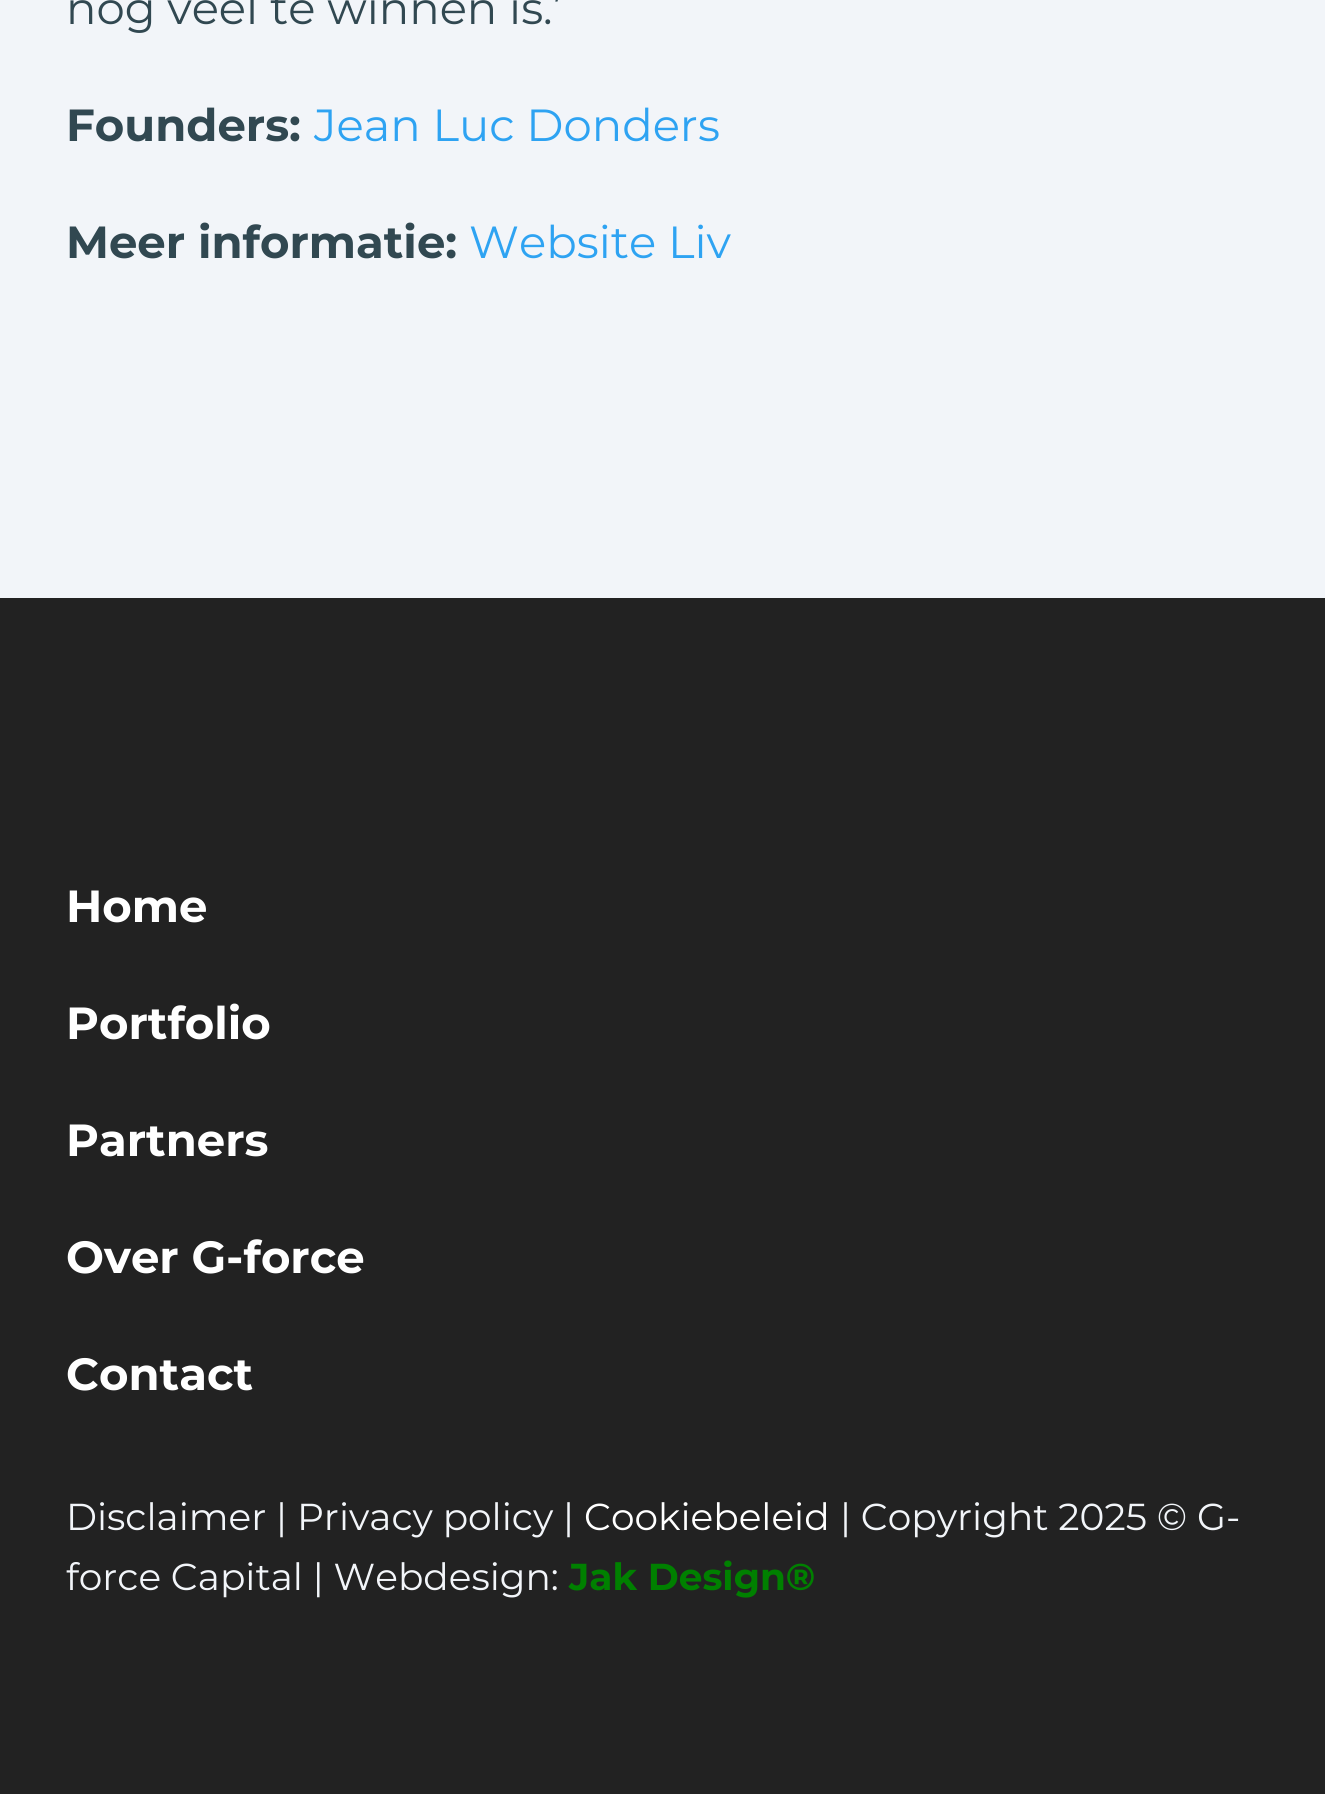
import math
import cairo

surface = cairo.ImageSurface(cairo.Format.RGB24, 1325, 1794)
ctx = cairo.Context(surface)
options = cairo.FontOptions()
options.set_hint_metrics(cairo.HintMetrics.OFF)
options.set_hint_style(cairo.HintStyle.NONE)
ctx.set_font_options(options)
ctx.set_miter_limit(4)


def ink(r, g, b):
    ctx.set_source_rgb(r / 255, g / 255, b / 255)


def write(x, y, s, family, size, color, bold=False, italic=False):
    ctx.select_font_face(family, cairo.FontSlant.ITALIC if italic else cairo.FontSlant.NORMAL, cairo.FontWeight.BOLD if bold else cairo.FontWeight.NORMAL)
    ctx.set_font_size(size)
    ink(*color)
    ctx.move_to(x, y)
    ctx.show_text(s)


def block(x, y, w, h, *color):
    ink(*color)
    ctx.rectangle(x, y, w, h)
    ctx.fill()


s1 = dict(family="Montserrat", size=45, color=(49, 72, 81))
s2 = dict(family="Montserrat", size=45, color=(49, 72, 81), bold=True)
s3 = dict(family="Montserrat", size=45, color=(46, 163, 242))
s4 = dict(family="Montserrat", size=45, color=(255, 255, 255), bold=True)
s5 = dict(family="Montserrat", size=37.5, color=(242, 245, 249))
s6 = dict(family="Montserrat", size=37.5, color=(255, 255, 255))
s7 = dict(family="Montserrat", size=37.5, color=(0, 128, 0), bold=True)

ink(242, 245, 249)
ctx.paint()
write(66, 24, "nog veel te winnen is.’", **s1)
write(66, 141, "Founders:", **s2)
write(314, 141, "Jean Luc Donders", **s3)
write(66, 258, "Meer informatie:", **s2)
write(469, 258, "Website Liv", **s3)
block(0, 598, 1325, 1196, 34, 34, 34)
write(66, 922, "Home", **s4)
write(66, 1039, "Portfolio", **s4)
write(66, 1156, "Partners", **s4)
write(66, 1273, "Over G-force", **s4)
write(66, 1390, "Contact", **s4)
write(66, 1530, "Disclaimer | Privacy policy |", **s5)
write(584, 1530, "Cookiebeleid", **s6)
write(840, 1530, "| Copyright 2025 © G-", **s5)
write(66, 1590, "force Capital | Webdesign:", **s5)
write(569, 1590, "Jak Design®", **s7)
surface.write_to_png("screenshot.png")
